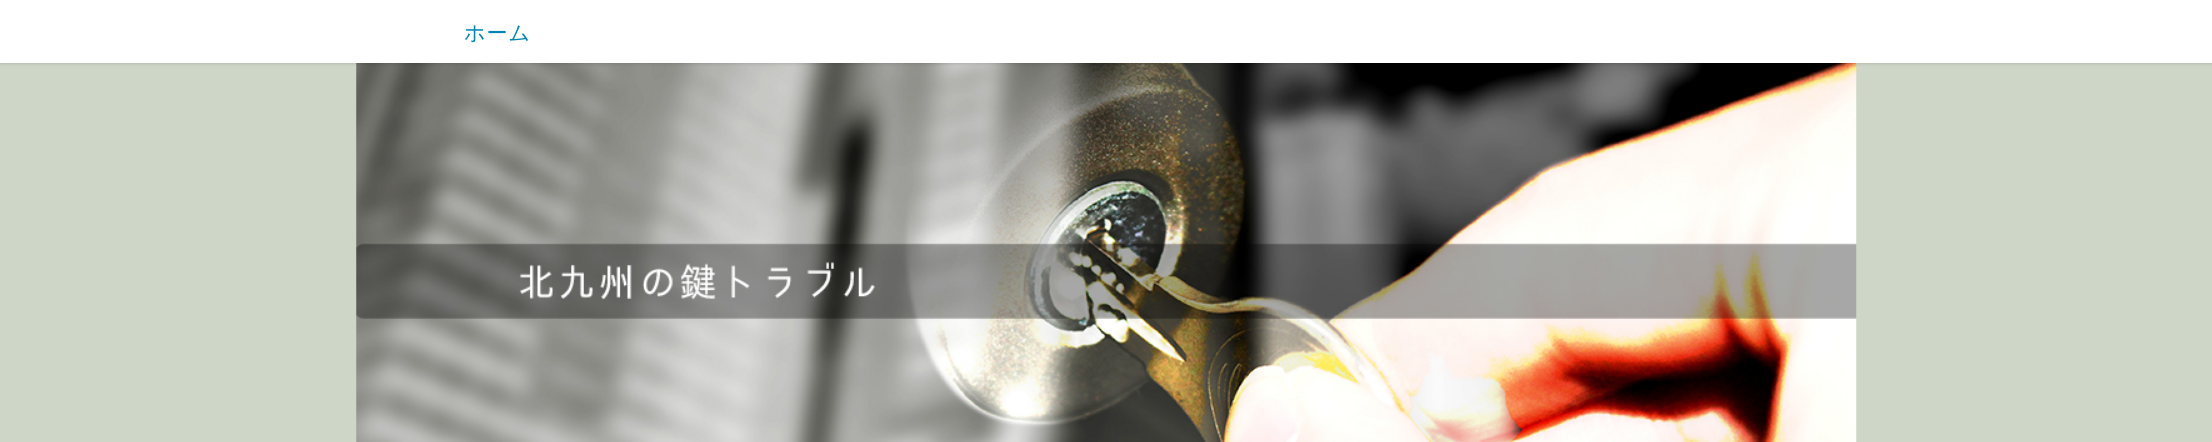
import math
import cairo

surface = cairo.ImageSurface(cairo.Format.RGB24, 2212, 442)
ctx = cairo.Context(surface)
options = cairo.FontOptions()
options.set_hint_metrics(cairo.HintMetrics.OFF)
options.set_hint_style(cairo.HintStyle.NONE)
ctx.set_font_options(options)
ctx.set_miter_limit(4)


def ink(r, g, b):
    ctx.set_source_rgb(r / 255, g / 255, b / 255)


def write_spaced(x, y, s, letter, word):
    ctx.move_to(x, y)
    for ch in s:
        ctx.show_text(ch)
        ctx.rel_move_to(letter + word * (ch == ' '), 0)


def block(x, y, w, h, *color):
    ink(*color)
    ctx.rectangle(x, y, w, h)
    ctx.fill()


def round_path(x, y, w, h, r):
    ctx.new_sub_path()
    for i, (u, v) in enumerate([(x + w - r, y + h - r), (x + r, y + h - r), (x + r, y + r), (x + w - r, y + r)]):
        ctx.arc(u, v, r, i * math.pi / 2, (i + 1) * math.pi / 2)
    ctx.close_path()


def blur_box(x, y, w, h, r, blur, alpha):
    ctx.push_group_with_content(cairo.Content.ALPHA)
    ctx.set_operator(cairo.Operator.SOURCE)
    for i in range(15, -16, -2):
        e = blur * i / 6
        if min(w, h) + 2 * e > 0:
            ctx.set_source_rgba(0, 0, 0, alpha * math.erfc((i - 1) / 8.5) / 2)
            round_path(x - e, y - e, w + 2 * e, h + 2 * e, max(0, min(r + e + blur * .6, min(w, h) / 2 + e)))
            ctx.fill()
    ctx.mask(ctx.pop_group())


def paste(path, x, y, w, h):
    ctx.save()
    ctx.set_source_surface(cairo.ImageSurface.create_from_png(path), x, y)
    ctx.rectangle(x, y, w, h)
    ctx.fill()
    ctx.restore()


ink(205, 214, 199)
ctx.paint()
paste("pic1.png", 356, 63, 1501, 379)
ink(0, 0, 0)
blur_box(0, 0, 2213, 63, 0, 2, 0.2)
block(0, 0, 2212, 63, 255, 255, 255)
ctx.select_font_face("WenQuanYi Zen Hei Medium")
ctx.set_font_size(21)
ink(0, 133, 178)
write_spaced(464, 40, "ホーム", 1, 0)
surface.write_to_png("screenshot.png")
